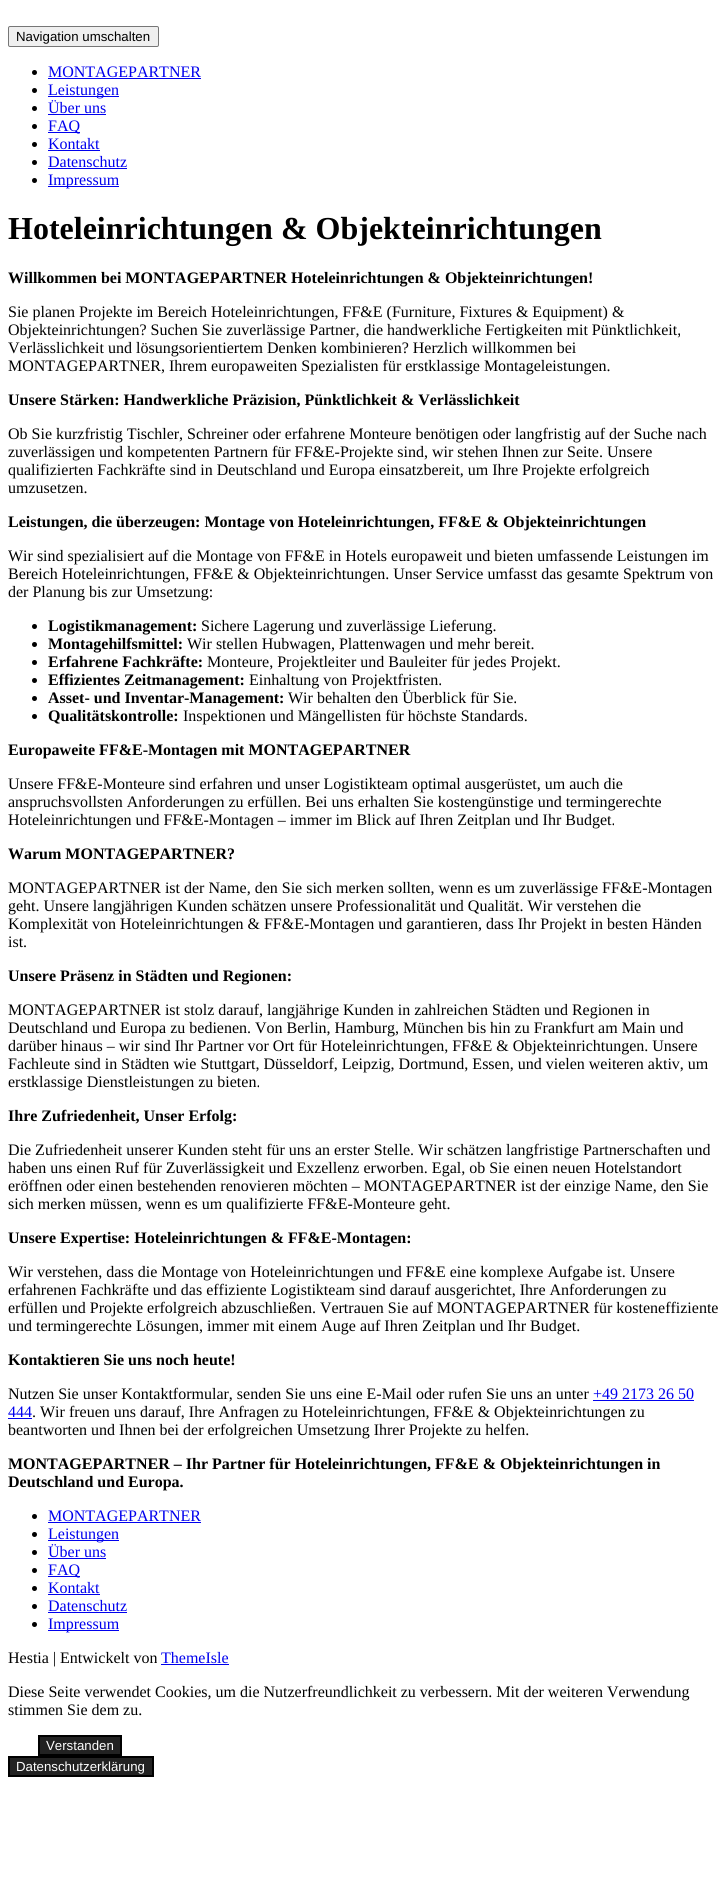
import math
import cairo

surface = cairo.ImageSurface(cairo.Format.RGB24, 728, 1902)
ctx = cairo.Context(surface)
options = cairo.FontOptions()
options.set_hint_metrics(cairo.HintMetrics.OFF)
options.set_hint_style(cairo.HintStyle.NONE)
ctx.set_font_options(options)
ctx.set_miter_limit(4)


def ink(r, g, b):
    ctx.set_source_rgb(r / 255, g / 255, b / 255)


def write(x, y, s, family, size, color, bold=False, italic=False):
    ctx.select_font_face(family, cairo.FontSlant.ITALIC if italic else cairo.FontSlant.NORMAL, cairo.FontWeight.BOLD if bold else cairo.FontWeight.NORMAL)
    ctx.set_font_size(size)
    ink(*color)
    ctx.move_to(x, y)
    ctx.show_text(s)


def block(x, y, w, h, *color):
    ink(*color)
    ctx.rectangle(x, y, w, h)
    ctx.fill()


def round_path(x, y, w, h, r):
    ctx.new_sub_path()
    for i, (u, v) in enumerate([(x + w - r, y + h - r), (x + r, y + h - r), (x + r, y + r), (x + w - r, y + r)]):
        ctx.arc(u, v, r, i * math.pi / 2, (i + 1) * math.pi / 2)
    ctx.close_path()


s1 = dict(family="Liberation Sans", size=13.25, color=(0, 0, 0))
s2 = dict(family="Liberation Serif", size=16, color=(0, 0, 238))
s3 = dict(family="Liberation Serif", size=32, color=(0, 0, 0), bold=True)
s4 = dict(family="Liberation Serif", size=16, color=(0, 0, 0), bold=True)
s5 = dict(family="Liberation Serif", size=16, color=(0, 0, 0))
s6 = dict(family="Liberation Sans", size=13.25, color=(255, 255, 255))

ink(255, 255, 255)
ctx.paint()
ink(239, 239, 239)
round_path(8.5, 26.5, 150, 20, 1.5)
ctx.fill_preserve()
ink(118, 118, 118)
ctx.set_line_width(1)
ctx.stroke()
write(16, 41, "Navigation umschalten", **s1)
ctx.new_path()
ctx.arc(34.5, 72.5, 2.5, 0, 2 * math.pi)
ctx.fill()
write(48, 77, "MONTAGEPARTNER", **s2)
block(48, 78, 153, 1, 0, 0, 238)
ink(0, 0, 0)
ctx.new_path()
ctx.arc(34.5, 90.5, 2.5, 0, 2 * math.pi)
ctx.fill()
block(48, 96, 71, 1, 0, 0, 238)
write(48, 95, "Leistungen", **s2)
ink(0, 0, 0)
ctx.new_path()
ctx.arc(34.5, 108.5, 2.5, 0, 2 * math.pi)
ctx.fill()
write(48, 113, "Über uns", **s2)
block(48, 114, 58, 1, 0, 0, 238)
ink(0, 0, 0)
ctx.new_path()
ctx.arc(34.5, 126.5, 2.5, 0, 2 * math.pi)
ctx.fill()
block(48, 132, 32, 1, 0, 0, 238)
write(48, 131, "FAQ", **s2)
ink(0, 0, 0)
ctx.new_path()
ctx.arc(34.5, 144.5, 2.5, 0, 2 * math.pi)
ctx.fill()
write(48, 149, "Kontakt", **s2)
block(48, 150, 52, 1, 0, 0, 238)
ink(0, 0, 0)
ctx.new_path()
ctx.arc(34.5, 162.5, 2.5, 0, 2 * math.pi)
ctx.fill()
write(48, 167, "Datenschutz", **s2)
block(48, 168, 79, 1, 0, 0, 238)
ink(0, 0, 0)
ctx.new_path()
ctx.arc(34.5, 180.5, 2.5, 0, 2 * math.pi)
ctx.fill()
block(48, 186, 71, 1, 0, 0, 238)
write(48, 185, "Impressum", **s2)
write(8, 239, "Hoteleinrichtungen & Objekteinrichtungen", **s3)
write(8, 283, "Willkommen bei MONTAGEPARTNER Hoteleinrichtungen & Objekteinrichtungen!", **s4)
write(8, 317, "Sie planen Projekte im Bereich Hoteleinrichtungen, FF&E (Furniture, Fixtures & Equipment) &", **s5)
write(8, 335, "Objekteinrichtungen? Suchen Sie zuverlässige Partner, die handwerkliche Fertigkeiten mit Pünktlichkeit,", **s5)
write(8, 353, "Verlässlichkeit und lösungsorientiertem Denken kombinieren? Herzlich willkommen bei", **s5)
write(8, 371, "MONTAGEPARTNER, Ihrem europaweiten Spezialisten für erstklassige Montageleistungen.", **s5)
write(8, 405, "Unsere Stärken: Handwerkliche Präzision, Pünktlichkeit & Verlässlichkeit", **s4)
write(8, 439, "Ob Sie kurzfristig Tischler, Schreiner oder erfahrene Monteure benötigen oder langfristig auf der Suche nach", **s5)
write(8, 457, "zuverlässigen und kompetenten Partnern für FF&E-Projekte sind, wir stehen Ihnen zur Seite. Unsere", **s5)
write(8, 475, "qualifizierten Fachkräfte sind in Deutschland und Europa einsatzbereit, um Ihre Projekte erfolgreich", **s5)
write(8, 493, "umzusetzen.", **s5)
write(8, 527, "Leistungen, die überzeugen: Montage von Hoteleinrichtungen, FF&E & Objekteinrichtungen", **s4)
write(8, 561, "Wir sind spezialisiert auf die Montage von FF&E in Hotels europaweit und bieten umfassende Leistungen im", **s5)
write(8, 579, "Bereich Hoteleinrichtungen, FF&E & Objekteinrichtungen. Unser Service umfasst das gesamte Spektrum von", **s5)
write(8, 597, "der Planung bis zur Umsetzung:", **s5)
ctx.new_path()
ctx.arc(34.5, 626.5, 2.5, 0, 2 * math.pi)
ctx.fill()
write(48, 631, "Logistikmanagement:", **s4)
write(201, 631, "Sichere Lagerung und zuverlässige Lieferung.", **s5)
ctx.new_path()
ctx.arc(34.5, 644.5, 2.5, 0, 2 * math.pi)
ctx.fill()
write(48, 649, "Montagehilfsmittel:", **s4)
write(187, 649, "Wir stellen Hubwagen, Plattenwagen und mehr bereit.", **s5)
ctx.new_path()
ctx.arc(34.5, 662.5, 2.5, 0, 2 * math.pi)
ctx.fill()
write(48, 667, "Erfahrene Fachkräfte:", **s4)
write(207, 667, "Monteure, Projektleiter und Bauleiter für jedes Projekt.", **s5)
ctx.new_path()
ctx.arc(34.5, 680.5, 2.5, 0, 2 * math.pi)
ctx.fill()
write(48, 685, "Effizientes Zeitmanagement:", **s4)
write(249, 685, "Einhaltung von Projektfristen.", **s5)
ctx.new_path()
ctx.arc(34.5, 698.5, 2.5, 0, 2 * math.pi)
ctx.fill()
write(48, 703, "Asset- und Inventar-Management:", **s4)
write(288, 703, "Wir behalten den Überblick für Sie.", **s5)
ctx.new_path()
ctx.arc(34.5, 716.5, 2.5, 0, 2 * math.pi)
ctx.fill()
write(48, 721, "Qualitätskontrolle:", **s4)
write(183, 721, "Inspektionen und Mängellisten für höchste Standards.", **s5)
write(8, 755, "Europaweite FF&E-Montagen mit MONTAGEPARTNER", **s4)
write(8, 789, "Unsere FF&E-Monteure sind erfahren und unser Logistikteam optimal ausgerüstet, um auch die", **s5)
write(8, 807, "anspruchsvollsten Anforderungen zu erfüllen. Bei uns erhalten Sie kostengünstige und termingerechte", **s5)
write(8, 825, "Hoteleinrichtungen und FF&E-Montagen – immer im Blick auf Ihren Zeitplan und Ihr Budget.", **s5)
write(8, 859, "Warum MONTAGEPARTNER?", **s4)
write(8, 893, "MONTAGEPARTNER ist der Name, den Sie sich merken sollten, wenn es um zuverlässige FF&E-Montagen", **s5)
write(8, 911, "geht. Unsere langjährigen Kunden schätzen unsere Professionalität und Qualität. Wir verstehen die", **s5)
write(8, 929, "Komplexität von Hoteleinrichtungen & FF&E-Montagen und garantieren, dass Ihr Projekt in besten Händen", **s5)
write(8, 947, "ist.", **s5)
write(8, 981, "Unsere Präsenz in Städten und Regionen:", **s4)
write(8, 1015, "MONTAGEPARTNER ist stolz darauf, langjährige Kunden in zahlreichen Städten und Regionen in", **s5)
write(8, 1033, "Deutschland und Europa zu bedienen. Von Berlin, Hamburg, München bis hin zu Frankfurt am Main und", **s5)
write(8, 1051, "darüber hinaus – wir sind Ihr Partner vor Ort für Hoteleinrichtungen, FF&E & Objekteinrichtungen. Unsere", **s5)
write(8, 1069, "Fachleute sind in Städten wie Stuttgart, Düsseldorf, Leipzig, Dortmund, Essen, und vielen weiteren aktiv, um", **s5)
write(8, 1087, "erstklassige Dienstleistungen zu bieten.", **s5)
write(8, 1121, "Ihre Zufriedenheit, Unser Erfolg:", **s4)
write(8, 1155, "Die Zufriedenheit unserer Kunden steht für uns an erster Stelle. Wir schätzen langfristige Partnerschaften und", **s5)
write(8, 1173, "haben uns einen Ruf für Zuverlässigkeit und Exzellenz erworben. Egal, ob Sie einen neuen Hotelstandort", **s5)
write(8, 1191, "eröffnen oder einen bestehenden renovieren möchten – MONTAGEPARTNER ist der einzige Name, den Sie", **s5)
write(8, 1209, "sich merken müssen, wenn es um qualifizierte FF&E-Monteure geht.", **s5)
write(8, 1243, "Unsere Expertise: Hoteleinrichtungen & FF&E-Montagen:", **s4)
write(8, 1277, "Wir verstehen, dass die Montage von Hoteleinrichtungen und FF&E eine komplexe Aufgabe ist. Unsere", **s5)
write(8, 1295, "erfahrenen Fachkräfte und das effiziente Logistikteam sind darauf ausgerichtet, Ihre Anforderungen zu", **s5)
write(8, 1313, "erfüllen und Projekte erfolgreich abzuschließen. Vertrauen Sie auf MONTAGEPARTNER für kosteneffiziente", **s5)
write(8, 1331, "und termingerechte Lösungen, immer mit einem Auge auf Ihren Zeitplan und Ihr Budget.", **s5)
write(8, 1365, "Kontaktieren Sie uns noch heute!", **s4)
write(8, 1399, "Nutzen Sie unser Kontaktformular, senden Sie uns eine E-Mail oder rufen Sie uns an unter", **s5)
write(593, 1399, "+49 2173 26 50", **s2)
block(593, 1400, 101, 1, 0, 0, 238)
write(8, 1417, "444", **s2)
block(8, 1418, 24, 1, 0, 0, 238)
write(32, 1417, ". Wir freuen uns darauf, Ihre Anfragen zu Hoteleinrichtungen, FF&E & Objekteinrichtungen zu", **s5)
write(8, 1435, "beantworten und Ihnen bei der erfolgreichen Umsetzung Ihrer Projekte zu helfen.", **s5)
write(8, 1469, "MONTAGEPARTNER – Ihr Partner für Hoteleinrichtungen, FF&E & Objekteinrichtungen in", **s4)
write(8, 1487, "Deutschland und Europa.", **s4)
ctx.new_path()
ctx.arc(34.5, 1516.5, 2.5, 0, 2 * math.pi)
ctx.fill()
write(48, 1521, "MONTAGEPARTNER", **s2)
block(48, 1522, 153, 1, 0, 0, 238)
ink(0, 0, 0)
ctx.new_path()
ctx.arc(34.5, 1534.5, 2.5, 0, 2 * math.pi)
ctx.fill()
block(48, 1540, 71, 1, 0, 0, 238)
write(48, 1539, "Leistungen", **s2)
ink(0, 0, 0)
ctx.new_path()
ctx.arc(34.5, 1552.5, 2.5, 0, 2 * math.pi)
ctx.fill()
write(48, 1557, "Über uns", **s2)
block(48, 1558, 58, 1, 0, 0, 238)
ink(0, 0, 0)
ctx.new_path()
ctx.arc(34.5, 1570.5, 2.5, 0, 2 * math.pi)
ctx.fill()
block(48, 1576, 32, 1, 0, 0, 238)
write(48, 1575, "FAQ", **s2)
ink(0, 0, 0)
ctx.new_path()
ctx.arc(34.5, 1588.5, 2.5, 0, 2 * math.pi)
ctx.fill()
write(48, 1593, "Kontakt", **s2)
block(48, 1594, 52, 1, 0, 0, 238)
ink(0, 0, 0)
ctx.new_path()
ctx.arc(34.5, 1606.5, 2.5, 0, 2 * math.pi)
ctx.fill()
write(48, 1611, "Datenschutz", **s2)
block(48, 1612, 79, 1, 0, 0, 238)
ink(0, 0, 0)
ctx.new_path()
ctx.arc(34.5, 1624.5, 2.5, 0, 2 * math.pi)
ctx.fill()
block(48, 1630, 71, 1, 0, 0, 238)
write(48, 1629, "Impressum", **s2)
write(8, 1663, "Hestia | Entwickelt von", **s5)
write(161, 1663, "ThemeIsle", **s2)
block(161, 1664, 68, 1, 0, 0, 238)
write(8, 1697, "Diese Seite verwendet Cookies, um die Nutzerfreundlichkeit zu verbessern. Mit der weiteren Verwendung", **s5)
write(8, 1715, "stimmen Sie dem zu.", **s5)
ink(34, 34, 34)
ctx.rectangle(39, 1736, 82, 19)
ctx.fill_preserve()
ink(0, 0, 0)
ctx.set_line_width(2)
ctx.stroke()
write(46, 1750, "Verstanden", **s6)
ink(34, 34, 34)
ctx.rectangle(9, 1757, 144, 19)
ctx.fill_preserve()
ink(0, 0, 0)
ctx.stroke()
write(16, 1771, "Datenschutzerklärung", **s6)
surface.write_to_png("screenshot.png")
